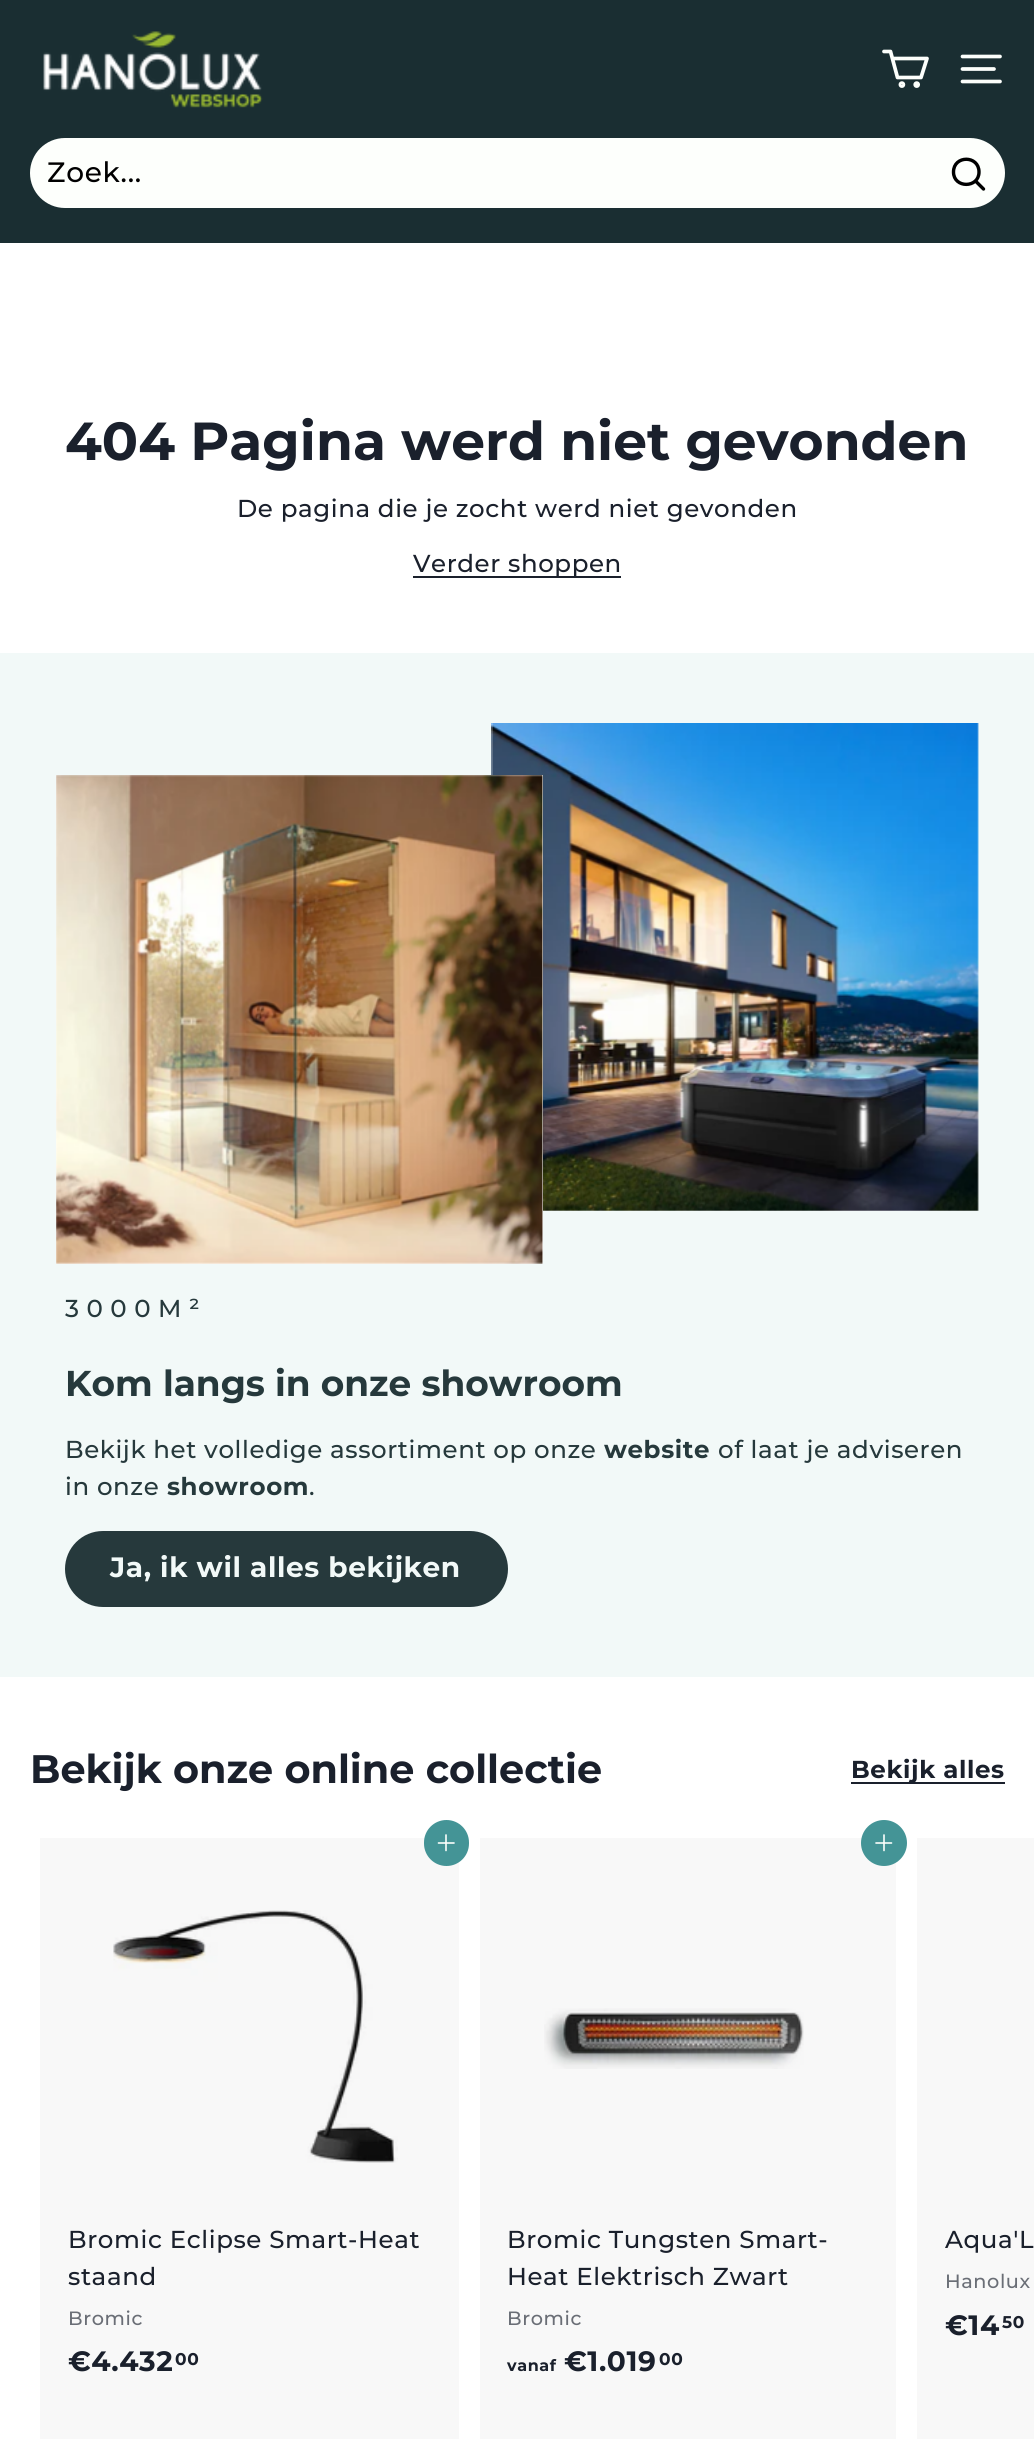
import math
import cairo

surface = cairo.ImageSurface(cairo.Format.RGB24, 1034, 2439)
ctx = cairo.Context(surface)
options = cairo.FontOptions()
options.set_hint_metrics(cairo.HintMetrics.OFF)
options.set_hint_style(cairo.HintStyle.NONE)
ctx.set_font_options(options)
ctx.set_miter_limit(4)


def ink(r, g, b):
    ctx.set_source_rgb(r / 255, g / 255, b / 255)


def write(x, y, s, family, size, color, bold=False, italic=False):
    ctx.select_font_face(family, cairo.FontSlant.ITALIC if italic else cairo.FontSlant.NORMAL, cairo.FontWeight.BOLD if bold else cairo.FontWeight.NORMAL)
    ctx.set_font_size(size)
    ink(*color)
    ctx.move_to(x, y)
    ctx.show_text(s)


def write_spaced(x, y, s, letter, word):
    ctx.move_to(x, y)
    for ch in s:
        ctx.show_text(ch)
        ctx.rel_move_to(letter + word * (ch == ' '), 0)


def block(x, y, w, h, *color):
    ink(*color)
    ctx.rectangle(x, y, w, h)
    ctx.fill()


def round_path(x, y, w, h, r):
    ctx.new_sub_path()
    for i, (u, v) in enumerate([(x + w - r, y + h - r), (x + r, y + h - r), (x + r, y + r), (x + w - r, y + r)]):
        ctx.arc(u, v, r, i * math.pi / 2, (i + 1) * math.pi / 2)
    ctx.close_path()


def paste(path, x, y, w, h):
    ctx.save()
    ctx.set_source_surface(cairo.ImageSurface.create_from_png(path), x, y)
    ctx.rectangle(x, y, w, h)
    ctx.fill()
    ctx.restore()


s1 = dict(family="Montserrat", size=53.5, color=(26, 32, 44), bold=True)
s2 = dict(family="Montserrat", size=35.9, color=(38, 57, 60), bold=True)
s3 = dict(family="Montserrat", size=39.75, color=(26, 32, 44), bold=True)

ink(255, 255, 255)
ctx.paint()
block(0, 0, 1034, 243, 26, 46, 50)
paste("pic1.png", 43, 31, 220, 77)
ctx.new_path()
ctx.move_to(892.5, 58.5)
ctx.line_to(927, 58.5)
ctx.line_to(921, 77.5)
ctx.line_to(897.5, 77.5)
ctx.line_to(890.5, 51.5)
ctx.line_to(884, 51.5)
ink(253, 255, 252)
ctx.set_line_width(3.7)
ctx.set_line_cap(cairo.LineCap.ROUND)
ctx.set_line_join(cairo.LineJoin.ROUND)
ctx.stroke()
ctx.arc(901.9, 84.6, 1.5, 0, 2 * math.pi)
ctx.set_line_cap(cairo.LineCap.BUTT)
ctx.set_line_join(cairo.LineJoin.MITER)
ctx.stroke()
ctx.arc(916.7, 84.6, 1.5, 0, 2 * math.pi)
ctx.fill_preserve()
ctx.stroke()
ctx.new_path()
ctx.move_to(962.5, 56.5)
ctx.line_to(1000, 56.5)
ctx.move_to(962.5, 69)
ctx.line_to(994, 69)
ctx.move_to(962.5, 81.5)
ctx.line_to(1000, 81.5)
ctx.set_line_cap(cairo.LineCap.ROUND)
ctx.set_line_join(cairo.LineJoin.ROUND)
ctx.stroke()
round_path(30, 138, 975, 70, 35)
ctx.fill()
ctx.select_font_face("Montserrat Medium")
ctx.set_font_size(28)
ink(0, 0, 0)
write_spaced(47, 182, "Zoek...", 0.75, 0)
ctx.new_path()
ctx.move_to(979, 172)
ctx.curve_to(979, 188.5, 953.5, 188.5, 953.5, 172)
ctx.curve_to(953.5, 155, 979, 155, 979, 172)
ctx.close_path()
ctx.move_to(983.5, 189)
ctx.line_to(975.5, 181)
ctx.set_line_width(3.4)
ctx.stroke()
write(65, 460, "404 Pagina werd niet gevonden", **s1)
ctx.select_font_face("Montserrat Medium")
ctx.set_font_size(24.5)
write_spaced(237, 517, "De pagina die je zocht werd niet gevonden", 0.6, 0)
block(413, 576, 208, 2, 26, 32, 44)
write_spaced(413, 572, "Verder shoppen", 0.6, 0)
block(0, 653, 1034, 1024, 242, 249, 248)
block(492, 723, 486, 488, 255, 255, 255)
paste("pic3.png", 491, 723, 488, 488)
block(56, 775, 487, 489, 255, 255, 255)
paste("pic2.png", 56, 775, 487, 489)
ink(38, 57, 60)
write_spaced(65, 1317, "3000M²", 7.5, 0)
write(65, 1396, "Kom langs in onze showroom", **s2)
ctx.select_font_face("Montserrat Medium")
ctx.set_font_size(24.5)
write_spaced(65, 1458, "Bekijk het volledige assortiment op onze", 0.6, 0)
ctx.select_font_face("Montserrat", cairo.FontSlant.NORMAL, cairo.FontWeight.BOLD)
write_spaced(604, 1458, "website", 0.6, 0)
ctx.select_font_face("Montserrat Medium")
write_spaced(718, 1458, "of laat je adviseren", 0.6, 0)
write_spaced(65, 1495, "in onze", 0.6, 0)
ctx.select_font_face("Montserrat", cairo.FontSlant.NORMAL, cairo.FontWeight.BOLD)
write_spaced(167, 1495, "showroom", 0.6, 0)
ctx.select_font_face("Montserrat Medium")
write_spaced(309, 1495, ".", 0.6, 0)
round_path(65, 1531, 443, 76, 38)
ctx.fill()
ctx.select_font_face("Montserrat", cairo.FontSlant.NORMAL, cairo.FontWeight.BOLD)
ctx.set_font_size(28)
ink(242, 249, 248)
write_spaced(110, 1577, "Ja, ik wil alles bekijken", 0.6, 0)
write(30, 1783, "Bekijk onze online collectie", **s3)
block(851, 1782, 154, 2, 26, 32, 44)
ctx.set_font_size(24.5)
write_spaced(851, 1778, "Bekijk alles", 0.6, 0)
paste("pic4.png", 113, 1910, 285, 253)
ctx.set_source_rgba(0, 0, 0, 0.03)
ctx.rectangle(40, 1838, 419, 601)
ctx.fill()
ink(68, 148, 150)
round_path(424, 1820, 45, 46, 22.5)
ctx.fill()
ctx.new_path()
ctx.move_to(446, 1835)
ctx.line_to(446, 1850.5)
ctx.move_to(454, 1843)
ctx.line_to(438.5, 1843)
ink(253, 255, 252)
ctx.set_line_width(1.6)
ctx.stroke()
ctx.select_font_face("Montserrat Medium")
ink(26, 32, 44)
write_spaced(68, 2248, "Bromic Eclipse Smart-Heat", 0.6, 0)
write_spaced(68, 2285, "staand", 0.6, 0)
ctx.set_font_size(19.25)
ink(106, 110, 118)
write_spaced(68, 2325, "Bromic", 0.6, 0)
ctx.select_font_face("Montserrat", cairo.FontSlant.NORMAL, cairo.FontWeight.BOLD)
ctx.set_font_size(28)
ink(26, 32, 44)
write_spaced(68, 2371, "€4.432", 0.6, 0)
ctx.set_font_size(17)
write_spaced(175, 2365, "00", 0.6, 0)
paste("pic5.png", 544, 2008, 260, 61)
ctx.set_source_rgba(0, 0, 0, 0.03)
ctx.rectangle(480, 1838, 416, 601)
ctx.fill()
ink(68, 148, 150)
ctx.arc(884, 1843, 23, 0, 2 * math.pi)
ctx.fill()
ctx.new_path()
ctx.move_to(884, 1835)
ctx.line_to(884, 1850.5)
ctx.move_to(891.5, 1843)
ctx.line_to(876, 1843)
ink(253, 255, 252)
ctx.stroke()
ctx.select_font_face("Montserrat Medium")
ctx.set_font_size(24.5)
ink(26, 32, 44)
write_spaced(507, 2248, "Bromic Tungsten Smart-", 0.6, 0)
write_spaced(507, 2285, "Heat Elektrisch Zwart", 0.6, 0)
ctx.set_font_size(19.25)
ink(106, 110, 118)
write_spaced(507, 2325, "Bromic", 0.6, 0)
ctx.select_font_face("Montserrat", cairo.FontSlant.NORMAL, cairo.FontWeight.BOLD)
ctx.set_font_size(16)
ink(26, 32, 44)
write_spaced(507, 2371, "vanaf", 0.6, 0)
ctx.set_font_size(28)
write_spaced(564, 2371, "€1.019", 0.6, 0)
ctx.set_font_size(17)
write_spaced(659, 2365, "00", 0.6, 0)
ctx.set_source_rgba(0, 0, 0, 0.03)
ctx.rectangle(917, 1838, 117, 601)
ctx.fill()
ctx.select_font_face("Montserrat Medium")
ctx.set_font_size(24.5)
ink(26, 32, 44)
write_spaced(945, 2248, "Aqua'L", 0.6, 0)
ctx.set_font_size(19.25)
ink(106, 110, 118)
write_spaced(945, 2288, "Hanolux", 0.6, 0)
ctx.select_font_face("Montserrat", cairo.FontSlant.NORMAL, cairo.FontWeight.BOLD)
ctx.set_font_size(28)
ink(26, 32, 44)
write_spaced(945, 2335, "€14", 0.6, 0)
ctx.set_font_size(17)
write_spaced(1002, 2328, "50", 0.6, 0)
surface.write_to_png("screenshot.png")
